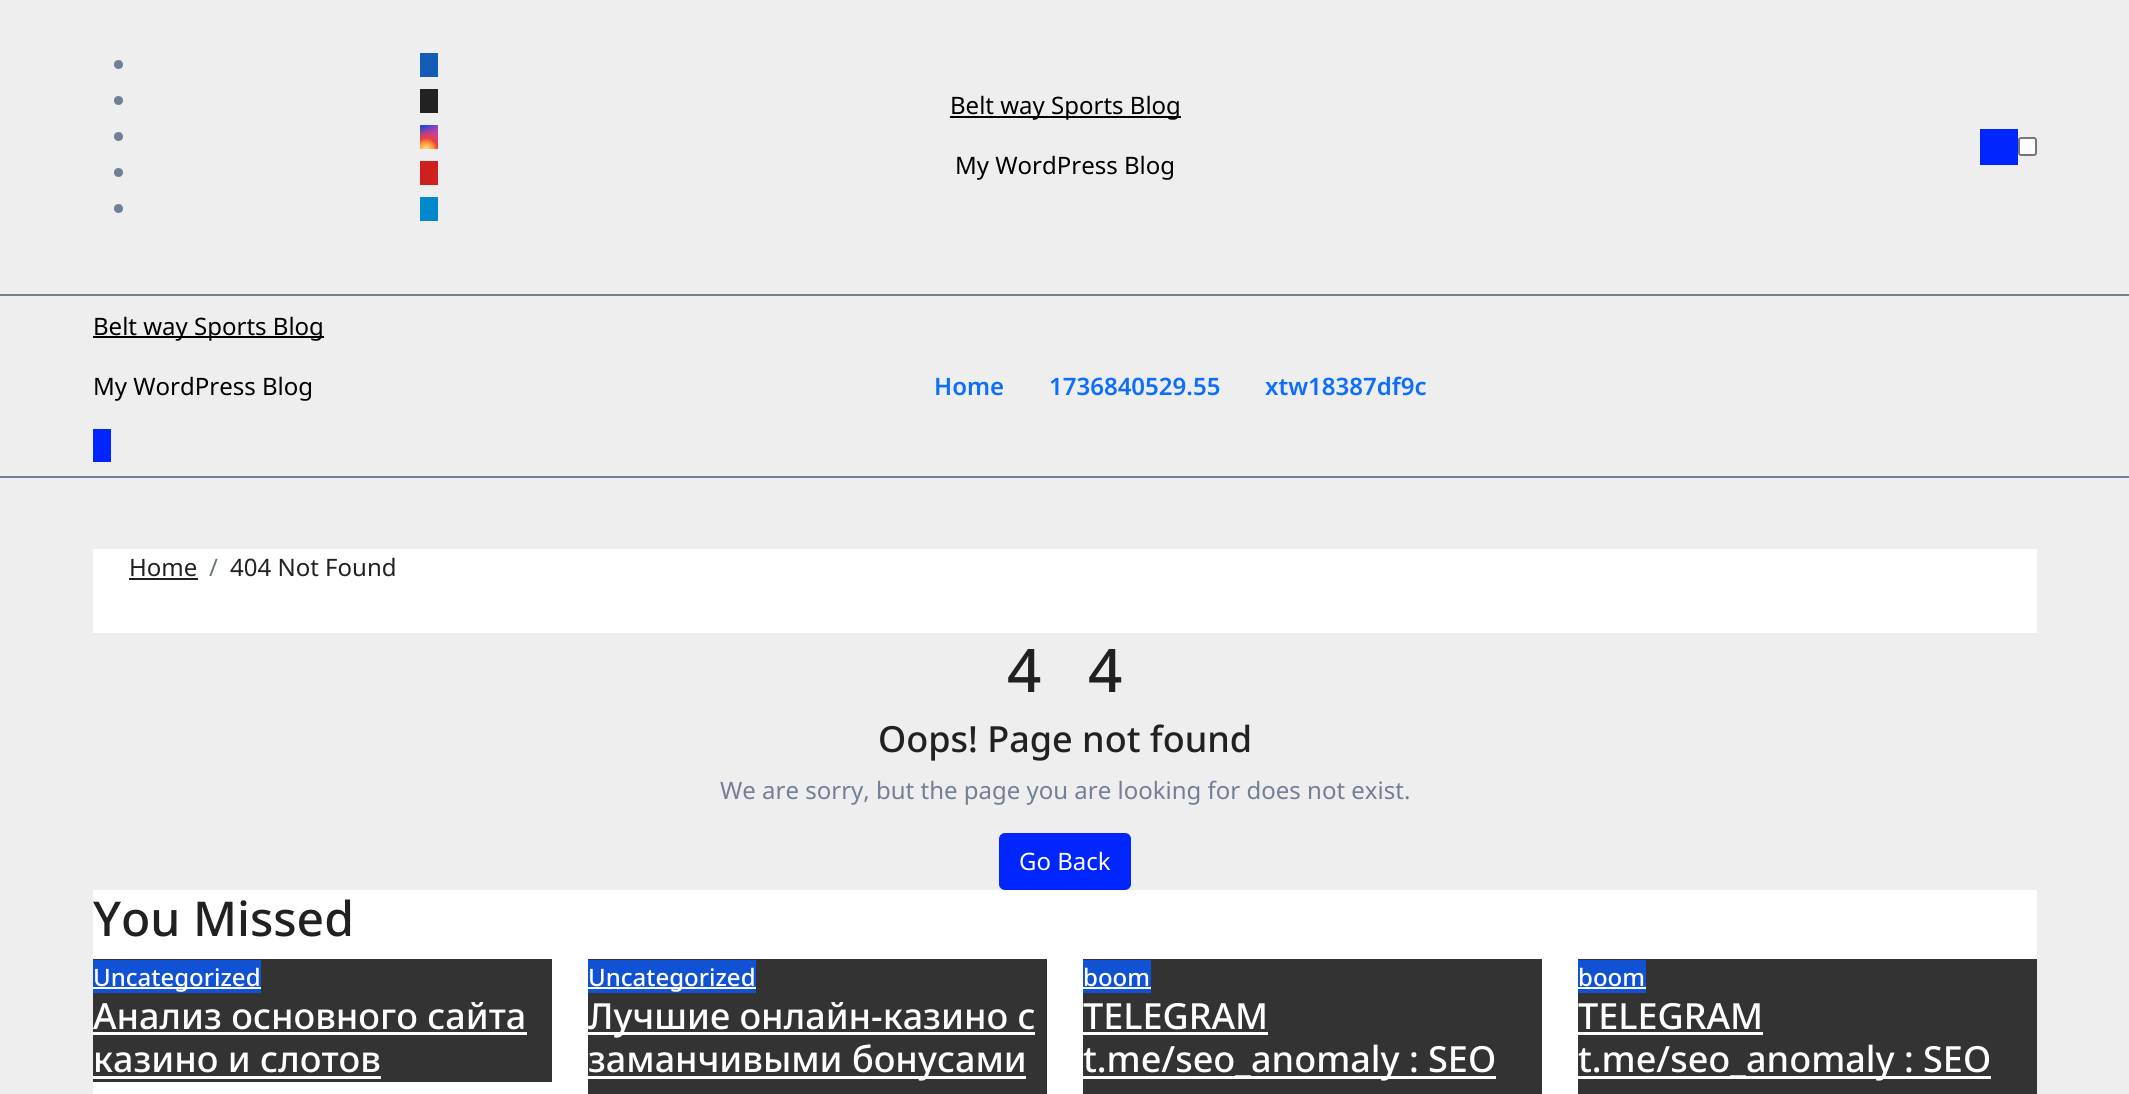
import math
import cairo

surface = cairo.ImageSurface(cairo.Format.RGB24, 2129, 1094)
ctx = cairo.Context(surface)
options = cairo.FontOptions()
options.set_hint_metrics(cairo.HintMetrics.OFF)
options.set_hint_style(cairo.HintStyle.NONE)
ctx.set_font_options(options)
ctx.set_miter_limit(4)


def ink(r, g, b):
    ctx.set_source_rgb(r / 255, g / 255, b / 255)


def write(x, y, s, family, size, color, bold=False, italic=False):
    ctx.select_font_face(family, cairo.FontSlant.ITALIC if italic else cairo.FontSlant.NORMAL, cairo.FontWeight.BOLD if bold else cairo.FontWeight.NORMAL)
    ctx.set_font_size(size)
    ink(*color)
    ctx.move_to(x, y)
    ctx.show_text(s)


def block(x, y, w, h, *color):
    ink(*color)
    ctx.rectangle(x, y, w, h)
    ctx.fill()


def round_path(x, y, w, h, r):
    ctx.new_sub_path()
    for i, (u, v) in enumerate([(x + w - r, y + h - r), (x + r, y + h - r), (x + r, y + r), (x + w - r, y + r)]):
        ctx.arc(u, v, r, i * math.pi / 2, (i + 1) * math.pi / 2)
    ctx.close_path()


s1 = dict(family="Noto Sans", size=24, color=(0, 0, 0))
s2 = dict(family="Noto Sans SemiBold", size=24, color=(13, 110, 253))
s3 = dict(family="Noto Sans", size=24, color=(33, 33, 33))
s4 = dict(family="Noto Sans", size=24, color=(108, 117, 125))
s5 = dict(family="Noto Sans Medium", size=60, color=(33, 33, 33))
s6 = dict(family="Noto Sans Medium", size=36, color=(33, 33, 33))
s7 = dict(family="Noto Sans", size=24, color=(113, 128, 150))
s8 = dict(family="Noto Sans", size=24, color=(255, 255, 255))
s9 = dict(family="Noto Sans Medium", size=48, color=(33, 33, 33))
s10 = dict(family="Noto Sans Medium", size=24, color=(255, 255, 255))
s11 = dict(family="Noto Sans Medium", size=36, color=(255, 255, 255))

ink(238, 238, 238)
ctx.paint()
ink(113, 128, 150)
ctx.arc(118.5, 64.5, 4.5, 0, 2 * math.pi)
ctx.fill()
block(420, 53, 18, 24, 19, 92, 182)
ink(113, 128, 150)
ctx.arc(118.5, 100.5, 4.5, 0, 2 * math.pi)
ctx.fill()
block(420, 89, 18, 24, 34, 34, 34)
ink(113, 128, 150)
ctx.arc(118.5, 136.5, 4.5, 0, 2 * math.pi)
ctx.fill()
gradient = cairo.LinearGradient(419, 126, 440, 147)
gradient.add_color_stop_rgba(0.12, 0.137, 0.294, 0.843, 1)
gradient.add_color_stop_rgba(0.58, 0.765, 0.235, 0.745, 1)
ctx.set_source(gradient)
ctx.rectangle(420, 125, 18, 22)
ctx.fill()
gradient = cairo.RadialGradient(426, 150, 0, 426, 150, 28)
gradient.add_color_stop_rgba(0, 1, 0.882, 0.49, 1)
gradient.add_color_stop_rgba(0.1, 1, 0.804, 0.412, 1)
gradient.add_color_stop_rgba(0.28, 0.98, 0.569, 0.216, 1)
gradient.add_color_stop_rgba(0.42, 0.922, 0.255, 0.255, 1)
gradient.add_color_stop_rgba(0.82, 0.922, 0.255, 0.255, 0)
ctx.set_source(gradient)
ctx.rectangle(420, 127, 18, 22)
ctx.fill()
ink(113, 128, 150)
ctx.arc(118.5, 172.5, 4.5, 0, 2 * math.pi)
ctx.fill()
block(420, 161, 18, 24, 205, 32, 31)
ink(113, 128, 150)
ctx.arc(118.5, 208.5, 4.5, 0, 2 * math.pi)
ctx.fill()
block(420, 197, 18, 24, 0, 136, 204)
block(950, 116, 231, 2, 0, 0, 0)
write(950, 114, "Belt way Sports Blog", **s1)
write(955, 174, "My WordPress Blog", **s1)
block(1980, 129, 38, 36, 0, 37, 255)
ink(255, 255, 255)
round_path(2019, 138, 17, 17, 2)
ctx.fill_preserve()
ink(118, 118, 118)
ctx.stroke()
block(0, 294, 2129, 2, 113, 128, 150)
block(0, 476, 2129, 2, 113, 128, 150)
block(93, 336, 231, 2, 0, 0, 0)
write(93, 335, "Belt way Sports Blog", **s1)
write(93, 395, "My WordPress Blog", **s1)
block(93, 429, 18, 33, 0, 37, 255)
write(934, 395, "Home", **s2)
write(1049, 395, "1736840529.55", **s2)
write(1265, 395, "xtw18387df9c", **s2)
block(93, 549, 1944, 84, 255, 255, 255)
write(129, 576, "Home", **s3)
block(129, 578, 69, 2, 33, 33, 33)
write(209, 576, "/", **s4)
write(230, 576, "404 Not Found", **s3)
write(1007, 692, "4", **s5)
write(1088, 692, "4", **s5)
write(878, 752, "Oops! Page not found", **s6)
write(720, 799, "We are sorry, but the page you are looking for does not exist.", **s7)
ink(0, 37, 255)
round_path(1000, 834, 130, 55, 5)
ctx.fill_preserve()
ctx.stroke()
write(1019, 870, "Go Back", **s8)
block(93, 890, 1944, 204, 255, 255, 255)
write(93, 936, "You Missed", **s9)
block(93, 959, 459, 123, 51, 51, 51)
block(93, 960, 168, 33, 17, 81, 211)
block(93, 987, 168, 2, 255, 255, 255)
write(93, 986, "Uncategorized", **s10)
write(93, 1029, "Анализ основного сайта", **s11)
block(93, 1032, 434, 3, 255, 255, 255)
write(93, 1072, "казино и слотов", **s11)
block(93, 1076, 288, 3, 255, 255, 255)
block(588, 959, 459, 135, 51, 51, 51)
block(588, 960, 168, 33, 17, 81, 211)
block(588, 987, 168, 2, 255, 255, 255)
write(588, 986, "Uncategorized", **s10)
block(588, 1032, 447, 3, 255, 255, 255)
write(588, 1029, "Лучшие онлайн-казино с", **s11)
block(588, 1076, 438, 3, 255, 255, 255)
write(588, 1072, "заманчивыми бонусами", **s11)
block(1083, 959, 459, 135, 51, 51, 51)
block(1083, 960, 68, 33, 17, 81, 211)
write(1083, 986, "boom", **s10)
block(1083, 987, 68, 2, 255, 255, 255)
write(1083, 1029, "TELEGRAM", **s11)
block(1083, 1032, 185, 3, 255, 255, 255)
block(1083, 1076, 413, 3, 255, 255, 255)
write(1083, 1072, "t.me/seo_anomaly : SEO", **s11)
block(1578, 959, 459, 135, 51, 51, 51)
block(1578, 960, 68, 33, 17, 81, 211)
write(1578, 986, "boom", **s10)
block(1578, 987, 68, 2, 255, 255, 255)
write(1578, 1029, "TELEGRAM", **s11)
block(1578, 1032, 185, 3, 255, 255, 255)
block(1578, 1076, 413, 3, 255, 255, 255)
write(1578, 1072, "t.me/seo_anomaly : SEO", **s11)
surface.write_to_png("screenshot.png")
